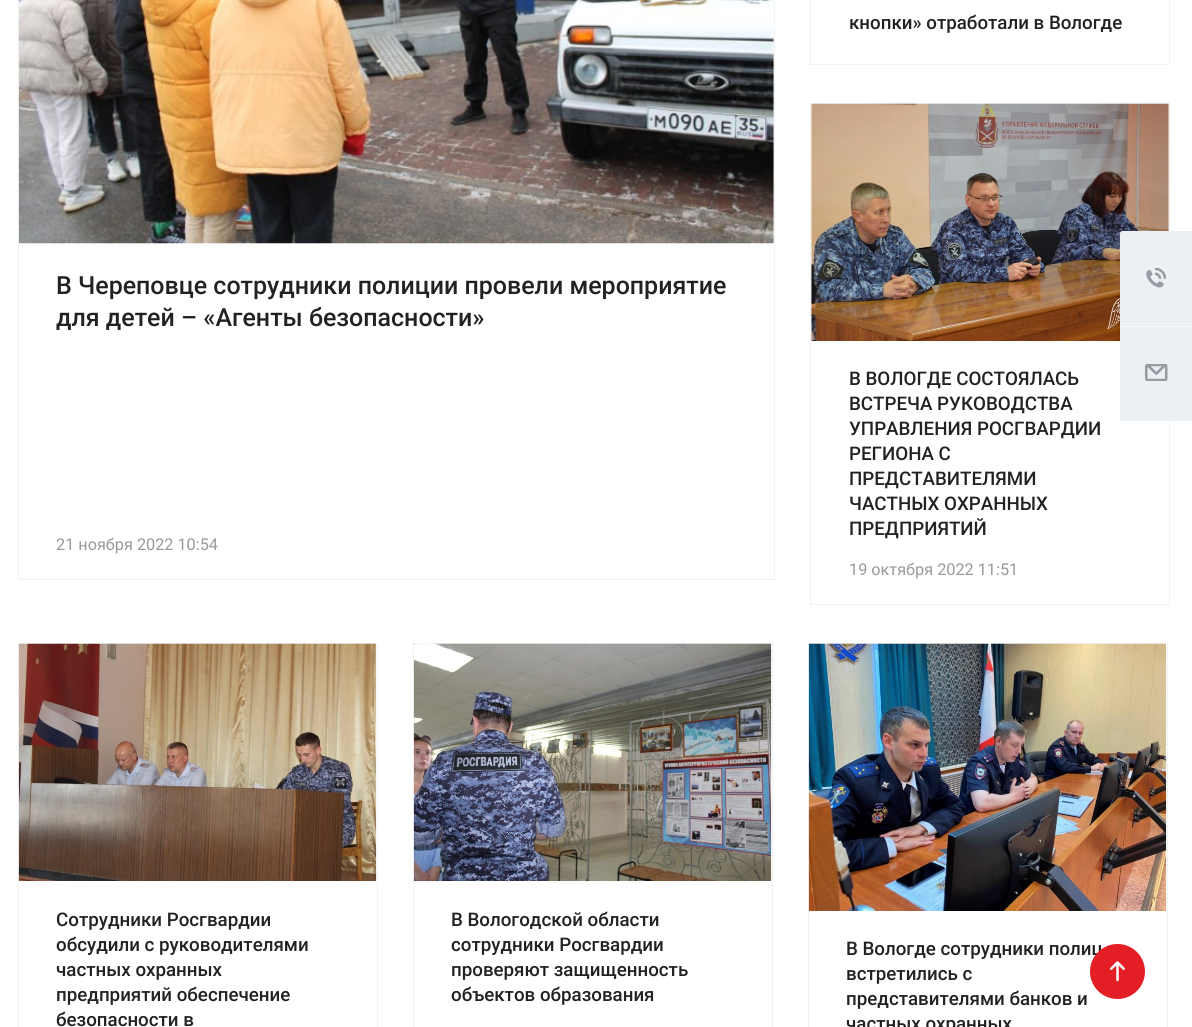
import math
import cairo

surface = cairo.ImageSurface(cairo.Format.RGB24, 1192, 1027)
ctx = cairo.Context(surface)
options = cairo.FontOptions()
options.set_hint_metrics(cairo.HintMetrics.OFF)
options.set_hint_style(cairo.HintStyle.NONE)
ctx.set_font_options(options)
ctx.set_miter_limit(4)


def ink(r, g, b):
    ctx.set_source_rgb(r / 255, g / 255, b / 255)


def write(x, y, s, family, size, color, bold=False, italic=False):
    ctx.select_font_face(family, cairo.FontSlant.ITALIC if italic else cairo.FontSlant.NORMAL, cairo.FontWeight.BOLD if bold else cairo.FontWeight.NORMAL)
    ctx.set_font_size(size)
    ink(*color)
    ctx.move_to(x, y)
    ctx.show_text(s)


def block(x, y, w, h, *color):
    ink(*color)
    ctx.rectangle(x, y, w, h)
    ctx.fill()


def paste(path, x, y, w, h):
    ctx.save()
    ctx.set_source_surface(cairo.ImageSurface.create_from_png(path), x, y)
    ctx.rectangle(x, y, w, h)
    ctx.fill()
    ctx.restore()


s1 = dict(family="Roboto Medium", size=25, color=(34, 34, 34))
s2 = dict(family="Roboto", size=16.25, color=(153, 153, 153))
s3 = dict(family="Roboto Medium", size=18.75, color=(34, 34, 34))

ink(255, 255, 255)
ctx.paint()
ctx.rectangle(18.5, -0.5, 756, 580)
ink(242, 242, 242)
ctx.set_line_width(1)
ctx.stroke()
paste("pic1.png", 18, 0, 756, 244)
write(56, 294, "В Череповце сотрудники полиции провели мероприятие", **s1)
write(56, 326, "для детей – «Агенты безопасности»", **s1)
write(56, 550, "21 ноября 2022 10:54", **s2)
ctx.rectangle(810.5, -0.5, 359, 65)
ink(242, 242, 242)
ctx.stroke()
write(849, 29, "кнопки» отработали в Вологде", **s3)
ctx.rectangle(810.5, 103.5, 359, 501)
ink(242, 242, 242)
ctx.stroke()
paste("pic2.png", 811, 103, 358, 238)
write(849, 385, "В ВОЛОГДЕ СОСТОЯЛАСЬ", **s3)
write(849, 410, "ВСТРЕЧА РУКОВОДСТВА", **s3)
write(849, 435, "УПРАВЛЕНИЯ РОСГВАРДИИ", **s3)
write(849, 460, "РЕГИОНА С", **s3)
write(849, 485, "ПРЕДСТАВИТЕЛЯМИ", **s3)
write(849, 510, "ЧАСТНЫХ ОХРАННЫХ", **s3)
write(849, 535, "ПРЕДПРИЯТИЙ", **s3)
write(849, 575, "19 октября 2022 11:51", **s2)
ctx.rectangle(18.5, 643.5, 359, 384)
ink(242, 242, 242)
ctx.stroke()
paste("pic3.png", 18, 643, 359, 238)
write(56, 926, "Сотрудники Росгвардии", **s3)
write(56, 951, "обсудили с руководителями", **s3)
write(56, 976, "частных охранных", **s3)
write(56, 1001, "предприятий обеспечение", **s3)
write(56, 1026, "безопасности в", **s3)
ctx.rectangle(413.5, 643.5, 359, 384)
ink(242, 242, 242)
ctx.stroke()
paste("pic4.png", 413, 643, 359, 238)
write(451, 926, "В Вологодской области", **s3)
write(451, 951, "сотрудники Росгвардии", **s3)
write(451, 976, "проверяют защищенность", **s3)
write(451, 1001, "объектов образования", **s3)
ctx.rectangle(808.5, 643.5, 359, 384)
ink(242, 242, 242)
ctx.stroke()
paste("pic5.png", 808, 643, 359, 268)
write(846, 955, "В Вологде сотрудники полиц", **s3)
write(846, 980, "встретились с", **s3)
write(846, 1005, "представителями банков и", **s3)
write(846, 1030, "частных охранных", **s3)
ink(237, 240, 243)
ctx.new_path()
ctx.move_to(1122.5, 231)
ctx.line_to(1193, 231)
ctx.line_to(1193, 326)
ctx.line_to(1120, 326)
ctx.line_to(1120, 233.5)
ctx.curve_to(1120, 232, 1121, 231, 1122.5, 231)
ctx.close_path()
ctx.fill()
paste("pic6.png", 1146, 268, 20, 20)
ctx.new_path()
ctx.move_to(1120, 326)
ctx.line_to(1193, 326)
ctx.line_to(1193, 421)
ctx.line_to(1122.5, 421)
ctx.curve_to(1121, 421, 1120, 420, 1120, 418.5)
ctx.close_path()
ctx.fill()
block(1120, 326, 72, 1, 246, 248, 249)
paste("pic7.png", 1145, 364, 23, 17)
ink(227, 30, 36)
ctx.arc(1117.5, 971.5, 27.5, 0, 2 * math.pi)
ctx.fill()
paste("pic8.png", 1110, 961, 15, 21)
surface.write_to_png("screenshot.png")
